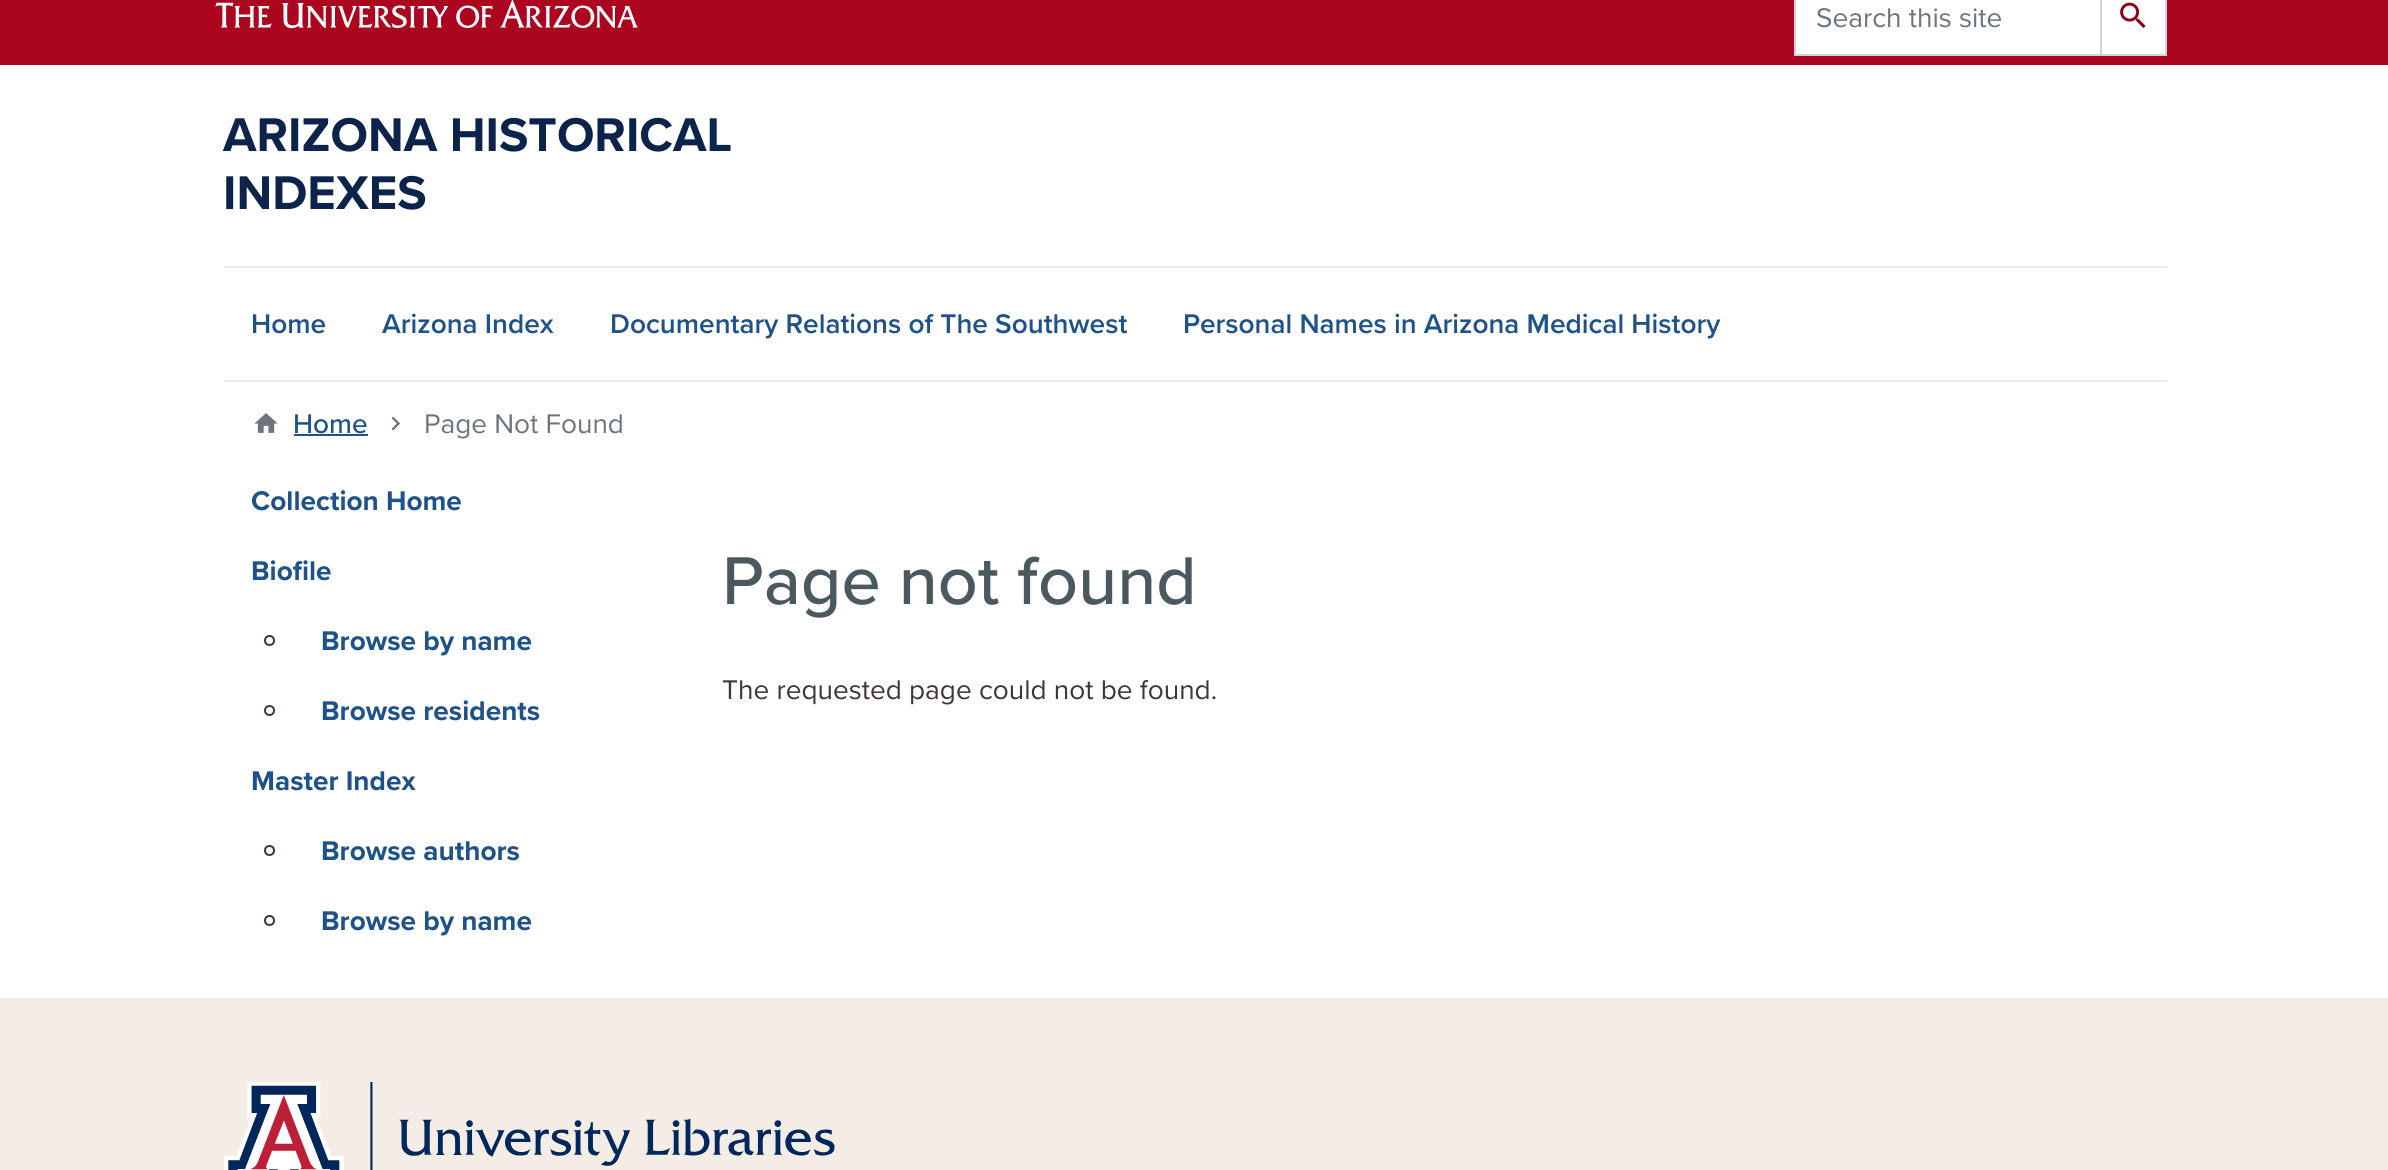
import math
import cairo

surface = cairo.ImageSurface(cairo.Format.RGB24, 2388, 1170)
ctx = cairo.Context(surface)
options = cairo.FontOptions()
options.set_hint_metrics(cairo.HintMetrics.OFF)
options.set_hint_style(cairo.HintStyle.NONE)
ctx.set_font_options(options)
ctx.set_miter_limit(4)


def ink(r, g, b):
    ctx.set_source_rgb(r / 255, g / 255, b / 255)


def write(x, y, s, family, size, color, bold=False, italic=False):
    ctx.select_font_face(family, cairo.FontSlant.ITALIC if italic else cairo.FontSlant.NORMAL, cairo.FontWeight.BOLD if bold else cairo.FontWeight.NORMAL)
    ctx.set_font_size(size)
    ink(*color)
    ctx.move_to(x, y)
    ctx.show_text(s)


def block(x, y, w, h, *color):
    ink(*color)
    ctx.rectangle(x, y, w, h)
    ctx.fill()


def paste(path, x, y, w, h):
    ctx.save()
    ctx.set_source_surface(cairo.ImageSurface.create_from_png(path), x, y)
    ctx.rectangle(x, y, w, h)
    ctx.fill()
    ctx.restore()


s1 = dict(family="Proxima Nova", size=28, color=(108, 117, 125))
s2 = dict(family="Proxima Nova", size=49, color=(12, 35, 75), bold=True)
s3 = dict(family="Proxima Nova SemiBold", size=28, color=(30, 82, 136))
s4 = dict(family="Proxima Nova Medium", size=28, color=(30, 82, 136))
s5 = dict(family="Proxima Nova", size=28, color=(30, 82, 136), bold=True)
s6 = dict(family="Proxima Nova Medium", size=70, color=(73, 89, 94))
s7 = dict(family="Proxima Nova", size=28, color=(64, 54, 53))

ink(255, 255, 255)
ctx.paint()
block(0, 0, 2388, 65, 171, 5, 32)
paste("pic1.png", 215, 0, 423, 29)
ink(255, 255, 255)
ctx.rectangle(1795, -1, 306, 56)
ctx.fill_preserve()
ink(206, 212, 218)
ctx.stroke()
write(1816, 27, "Search this site", **s1)
ink(255, 255, 255)
ctx.rectangle(2101, -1, 65, 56)
ctx.fill_preserve()
ink(206, 212, 218)
ctx.stroke()
paste("pic2.png", 2120, 2, 26, 26)
write(223, 151, "ARIZONA HISTORICAL", **s2)
write(223, 209, "INDEXES", **s2)
block(224, 266, 1943, 2, 233, 236, 239)
block(224, 380, 1943, 2, 233, 236, 239)
write(251, 333, "Home", **s3)
write(382, 333, "Arizona Index", **s3)
write(610, 333, "Documentary Relations of The Southwest", **s3)
write(1183, 333, "Personal Names in Arizona Medical History", **s3)
paste("pic3.png", 254, 413, 24, 20)
write(293, 433, "Home", **s4)
block(294, 434, 74, 2, 30, 82, 136)
paste("pic4.png", 391, 416, 9, 15)
write(424, 433, "Page Not Found", **s1)
write(251, 510, "Collection Home", **s5)
write(251, 580, "Biofile", **s5)
ctx.new_path()
ctx.arc(269.5, 640.5, 4.5, 0, 2 * math.pi)
ink(64, 54, 53)
ctx.stroke()
write(321, 650, "Browse by name", **s5)
ctx.new_path()
ctx.arc(269.5, 710.5, 4.5, 0, 2 * math.pi)
ink(64, 54, 53)
ctx.stroke()
write(321, 720, "Browse residents", **s5)
write(251, 790, "Master Index", **s5)
ctx.new_path()
ctx.arc(269.5, 850.5, 4.5, 0, 2 * math.pi)
ink(64, 54, 53)
ctx.stroke()
write(321, 860, "Browse authors", **s5)
ctx.new_path()
ctx.arc(269.5, 920.5, 4.5, 0, 2 * math.pi)
ink(64, 54, 53)
ctx.stroke()
write(321, 930, "Browse by name", **s5)
write(722, 604, "Page not found", **s6)
write(722, 699, "The requested page could not be found.", **s7)
block(0, 998, 2388, 172, 244, 237, 229)
paste("pic5.png", 224, 1082, 611, 88)
surface.write_to_png("screenshot.png")
